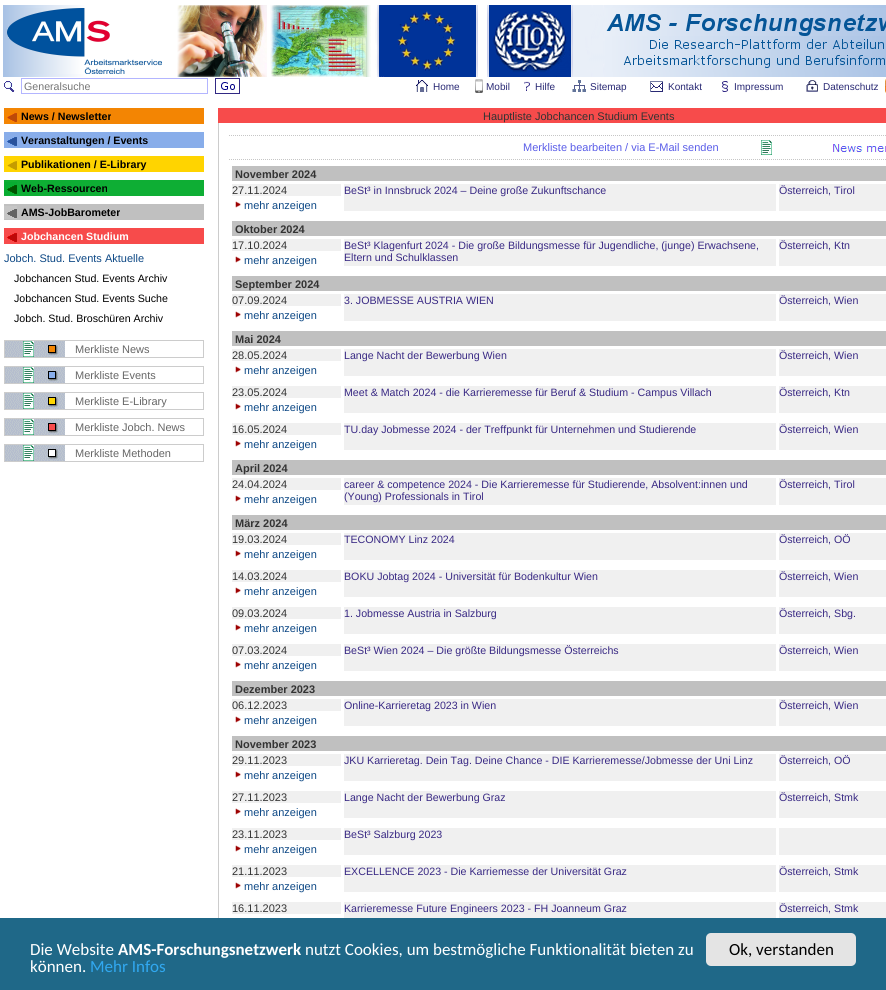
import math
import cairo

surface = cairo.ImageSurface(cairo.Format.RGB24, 886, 990)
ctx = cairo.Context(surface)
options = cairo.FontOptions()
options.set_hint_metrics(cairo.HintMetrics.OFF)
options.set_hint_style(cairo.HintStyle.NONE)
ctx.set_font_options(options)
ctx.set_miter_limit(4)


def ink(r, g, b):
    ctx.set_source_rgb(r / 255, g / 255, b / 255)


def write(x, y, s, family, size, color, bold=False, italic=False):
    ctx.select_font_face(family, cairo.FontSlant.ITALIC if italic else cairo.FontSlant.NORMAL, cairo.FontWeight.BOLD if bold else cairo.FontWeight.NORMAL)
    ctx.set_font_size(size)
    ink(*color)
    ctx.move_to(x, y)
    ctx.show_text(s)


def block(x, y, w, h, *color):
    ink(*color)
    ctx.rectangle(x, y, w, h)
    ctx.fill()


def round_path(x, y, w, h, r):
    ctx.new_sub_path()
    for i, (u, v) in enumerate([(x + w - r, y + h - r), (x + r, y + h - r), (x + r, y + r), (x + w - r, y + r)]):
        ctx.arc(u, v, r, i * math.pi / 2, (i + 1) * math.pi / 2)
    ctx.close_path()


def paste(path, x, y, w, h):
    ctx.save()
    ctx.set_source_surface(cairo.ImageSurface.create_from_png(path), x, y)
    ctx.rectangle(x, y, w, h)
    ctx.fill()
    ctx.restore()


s1 = dict(family="Liberation Sans", size=10.65, color=(117, 117, 117))
s2 = dict(family="Liberation Sans", size=10, color=(41, 41, 116))
s3 = dict(family="Liberation Sans", size=10.65, color=(0, 0, 0), bold=True)
s4 = dict(family="Liberation Sans", size=10.65, color=(255, 255, 255), bold=True)
s5 = dict(family="Liberation Sans", size=11, color=(13, 72, 133))
s6 = dict(family="Liberation Sans", size=10.65, color=(0, 0, 0))
s7 = dict(family="Liberation Sans", size=11, color=(102, 102, 102))
s8 = dict(family="Liberation Sans", size=11, color=(51, 51, 51))
s9 = dict(family="Liberation Sans", size=11, color=(90, 93, 232))
s10 = dict(family="Liberation Sans", size=11, color=(51, 51, 51), bold=True)
s11 = dict(family="Liberation Sans", size=10.65, color=(57, 41, 132))
s12 = dict(family="Carlito", size=17, color=(255, 255, 255))
s13 = dict(family="Carlito", size=17, color=(255, 255, 255), bold=True)
s14 = dict(family="Carlito", size=17, color=(49, 168, 240))
s15 = dict(family="Carlito", size=17, color=(0, 0, 0))

ink(255, 255, 255)
ctx.paint()
paste("pic1.png", 3, 5, 883, 72)
paste("pic2.png", 3, 81, 12, 11)
ctx.rectangle(21.5, 78.5, 186, 15)
ink(179, 181, 255)
ctx.set_line_width(1)
ctx.stroke()
write(24, 90, "Generalsuche", **s1)
paste("pic3.png", 215, 78, 25, 16)
paste("pic4.png", 416, 80, 12, 12)
write(433, 90, "Home", **s2)
paste("pic5.png", 475, 79, 8, 14)
write(486, 90, "Mobil", **s2)
paste("pic6.png", 524, 81, 6, 10)
write(535, 90, "Hilfe", **s2)
paste("pic7.png", 572, 80, 14, 12)
write(590, 90, "Sitemap", **s2)
paste("pic8.png", 650, 81, 13, 11)
write(668, 90, "Kontakt", **s2)
paste("pic9.png", 722, 81, 6, 11)
write(734, 90, "Impressum", **s2)
paste("pic10.png", 806, 80, 12, 12)
write(823, 90, "Datenschutz", **s2)
paste("pic11.png", 885, 79, 1, 14)
block(4, 108, 200, 16, 243, 133, 3)
paste("pic12.png", 7, 113, 10, 9)
write(21, 120, "News / Newsletter", **s3)
block(4, 132, 200, 16, 136, 173, 234)
paste("pic13.png", 7, 137, 10, 9)
write(21, 144, "Veranstaltungen / Events", **s3)
block(4, 156, 200, 16, 255, 212, 0)
paste("pic14.png", 7, 161, 10, 9)
write(21, 168, "Publikationen / E-Library", **s3)
block(4, 180, 200, 16, 14, 174, 52)
paste("pic15.png", 4, 182, 13, 13)
write(21, 192, "Web-Ressourcen", **s3)
block(4, 204, 200, 16, 192, 192, 192)
paste("pic16.png", 4, 206, 13, 13)
write(21, 216, "AMS-JobBarometer", **s3)
block(4, 228, 200, 16, 247, 75, 75)
paste("pic17.png", 7, 233, 10, 9)
write(21, 240, "Jobchancen Studium", **s4)
write(4, 262, "Jobch. Stud. Events Aktuelle", **s5)
write(14, 282, "Jobchancen Stud. Events Archiv", **s6)
write(14, 302, "Jobchancen Stud. Events Suche", **s6)
write(14, 322, "Jobch. Stud. Broschüren Archiv", **s6)
ctx.rectangle(4.5, 340.5, 199, 17)
ink(204, 204, 204)
ctx.stroke()
paste("pic18.png", 5, 341, 60, 16)
write(75, 353, "Merkliste News", **s7)
ctx.rectangle(4.5, 366.5, 199, 17)
ink(204, 204, 204)
ctx.stroke()
paste("pic19.png", 5, 367, 60, 16)
write(75, 379, "Merkliste Events", **s7)
ctx.rectangle(4.5, 392.5, 199, 17)
ink(204, 204, 204)
ctx.stroke()
paste("pic20.png", 5, 393, 60, 16)
write(75, 405, "Merkliste E-Library", **s7)
ctx.rectangle(4.5, 418.5, 199, 17)
ink(204, 204, 204)
ctx.stroke()
paste("pic21.png", 5, 419, 60, 16)
write(75, 431, "Merkliste Jobch. News", **s7)
ctx.rectangle(4.5, 444.5, 199, 17)
ink(204, 204, 204)
ctx.stroke()
paste("pic22.png", 5, 445, 60, 16)
write(75, 457, "Merkliste Methoden", **s7)
ctx.rectangle(218.5, 108.5, 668, 14)
ink(247, 75, 75)
ctx.stroke()
block(219, 109, 667, 13, 247, 75, 75)
write(483, 120, "Hauptliste Jobchancen Studium Events", **s8)
block(218, 123, 1, 795, 204, 204, 204)
paste("pic23.png", 229, 135, 657, 1)
write(523, 151, "Merkliste bearbeiten / via E-Mail senden", **s9)
paste("pic24.png", 761, 140, 11, 15)
paste("pic25.png", 833, 144, 53, 9)
paste("pic23.png", 229, 159, 657, 1)
block(232, 166, 654, 15, 192, 192, 192)
write(235, 178, "November 2024", **s10)
block(232, 184, 109, 12, 240, 240, 240)
write(232, 194, "27.11.2024", **s8)
block(344, 184, 432, 27, 240, 240, 240)
write(344, 194, "BeSt³ in Innsbruck 2024 – Deine große Zukunftschance", **s11)
block(779, 184, 107, 27, 240, 240, 240)
write(779, 194, "Österreich, Tirol", **s11)
paste("pic26.png", 235, 201, 6, 7)
write(244, 209, "mehr anzeigen", **s5)
block(232, 221, 654, 15, 192, 192, 192)
write(235, 233, "Oktober 2024", **s10)
block(232, 239, 109, 12, 240, 240, 240)
write(232, 249, "17.10.2024", **s8)
block(344, 239, 432, 27, 240, 240, 240)
write(344, 249, "BeSt³ Klagenfurt 2024 - Die große Bildungsmesse für Jugendliche, (junge) Erwachsene,", **s11)
write(344, 261, "Eltern und Schulklassen", **s11)
block(779, 239, 107, 27, 240, 240, 240)
write(779, 249, "Österreich, Ktn", **s11)
paste("pic26.png", 235, 256, 6, 7)
write(244, 264, "mehr anzeigen", **s5)
block(232, 276, 654, 15, 192, 192, 192)
write(235, 288, "September 2024", **s10)
block(232, 294, 109, 12, 240, 240, 240)
write(232, 304, "07.09.2024", **s8)
block(344, 294, 432, 27, 240, 240, 240)
write(344, 304, "3. JOBMESSE AUSTRIA WIEN", **s11)
block(779, 294, 107, 27, 240, 240, 240)
write(779, 304, "Österreich, Wien", **s11)
paste("pic26.png", 235, 311, 6, 7)
write(244, 319, "mehr anzeigen", **s5)
block(232, 331, 654, 15, 192, 192, 192)
write(235, 343, "Mai 2024", **s10)
block(232, 349, 109, 12, 240, 240, 240)
write(232, 359, "28.05.2024", **s8)
block(344, 349, 432, 27, 240, 240, 240)
write(344, 359, "Lange Nacht der Bewerbung Wien", **s11)
block(779, 349, 107, 27, 240, 240, 240)
write(779, 359, "Österreich, Wien", **s11)
paste("pic26.png", 235, 366, 6, 7)
write(244, 374, "mehr anzeigen", **s5)
block(232, 386, 109, 12, 240, 240, 240)
write(232, 396, "23.05.2024", **s8)
block(344, 386, 432, 27, 240, 240, 240)
write(344, 396, "Meet & Match 2024 - die Karrieremesse für Beruf & Studium - Campus Villach", **s11)
block(779, 386, 107, 27, 240, 240, 240)
write(779, 396, "Österreich, Ktn", **s11)
paste("pic26.png", 235, 403, 6, 7)
write(244, 411, "mehr anzeigen", **s5)
block(232, 423, 109, 12, 240, 240, 240)
write(232, 433, "16.05.2024", **s8)
block(344, 423, 432, 27, 240, 240, 240)
write(344, 433, "TU.day Jobmesse 2024 - der Treffpunkt für Unternehmen und Studierende", **s11)
block(779, 423, 107, 27, 240, 240, 240)
write(779, 433, "Österreich, Wien", **s11)
paste("pic26.png", 235, 440, 6, 7)
write(244, 448, "mehr anzeigen", **s5)
block(232, 460, 654, 15, 192, 192, 192)
write(235, 472, "April 2024", **s10)
block(232, 478, 109, 12, 240, 240, 240)
write(232, 488, "24.04.2024", **s8)
block(344, 478, 432, 27, 240, 240, 240)
write(344, 488, "career & competence 2024 - Die Karrieremesse für Studierende, Absolvent:innen und", **s11)
write(344, 500, "(Young) Professionals in Tirol", **s11)
block(779, 478, 107, 27, 240, 240, 240)
write(779, 488, "Österreich, Tirol", **s11)
paste("pic26.png", 235, 495, 6, 7)
write(244, 503, "mehr anzeigen", **s5)
block(232, 515, 654, 15, 192, 192, 192)
write(235, 527, "März 2024", **s10)
block(232, 533, 109, 12, 240, 240, 240)
write(232, 543, "19.03.2024", **s8)
block(344, 533, 432, 27, 240, 240, 240)
write(344, 543, "TECONOMY Linz 2024", **s11)
block(779, 533, 107, 27, 240, 240, 240)
write(779, 543, "Österreich, OÖ", **s11)
paste("pic26.png", 235, 550, 6, 7)
write(244, 558, "mehr anzeigen", **s5)
block(232, 570, 109, 12, 240, 240, 240)
write(232, 580, "14.03.2024", **s8)
block(344, 570, 432, 27, 240, 240, 240)
write(344, 580, "BOKU Jobtag 2024 - Universität für Bodenkultur Wien", **s11)
block(779, 570, 107, 27, 240, 240, 240)
write(779, 580, "Österreich, Wien", **s11)
paste("pic26.png", 235, 587, 6, 7)
write(244, 595, "mehr anzeigen", **s5)
block(232, 607, 109, 12, 240, 240, 240)
write(232, 617, "09.03.2024", **s8)
block(344, 607, 432, 27, 240, 240, 240)
write(344, 617, "1. Jobmesse Austria in Salzburg", **s11)
block(779, 607, 107, 27, 240, 240, 240)
write(779, 617, "Österreich, Sbg.", **s11)
paste("pic26.png", 235, 624, 6, 7)
write(244, 632, "mehr anzeigen", **s5)
block(232, 644, 109, 12, 240, 240, 240)
write(232, 654, "07.03.2024", **s8)
block(344, 644, 432, 27, 240, 240, 240)
write(344, 654, "BeSt³ Wien 2024 – Die größte Bildungsmesse Österreichs", **s11)
block(779, 644, 107, 27, 240, 240, 240)
write(779, 654, "Österreich, Wien", **s11)
paste("pic26.png", 235, 661, 6, 7)
write(244, 669, "mehr anzeigen", **s5)
block(232, 681, 654, 15, 192, 192, 192)
write(235, 693, "Dezember 2023", **s10)
block(232, 699, 109, 12, 240, 240, 240)
write(232, 709, "06.12.2023", **s8)
block(344, 699, 432, 27, 240, 240, 240)
write(344, 709, "Online-Karrieretag 2023 in Wien", **s11)
block(779, 699, 107, 27, 240, 240, 240)
write(779, 709, "Österreich, Wien", **s11)
paste("pic26.png", 235, 716, 6, 7)
write(244, 724, "mehr anzeigen", **s5)
block(232, 736, 654, 15, 192, 192, 192)
write(235, 748, "November 2023", **s10)
block(232, 754, 109, 12, 240, 240, 240)
write(232, 764, "29.11.2023", **s8)
block(344, 754, 432, 27, 240, 240, 240)
write(344, 764, "JKU Karrieretag. Dein Tag. Deine Chance - DIE Karrieremesse/Jobmesse der Uni Linz", **s11)
block(779, 754, 107, 27, 240, 240, 240)
write(779, 764, "Österreich, OÖ", **s11)
paste("pic26.png", 235, 771, 6, 7)
write(244, 779, "mehr anzeigen", **s5)
block(232, 791, 109, 12, 240, 240, 240)
write(232, 801, "27.11.2023", **s8)
block(344, 791, 432, 27, 240, 240, 240)
write(344, 801, "Lange Nacht der Bewerbung Graz", **s11)
block(779, 791, 107, 27, 240, 240, 240)
write(779, 801, "Österreich, Stmk", **s11)
paste("pic26.png", 235, 808, 6, 7)
write(244, 816, "mehr anzeigen", **s5)
block(232, 828, 109, 12, 240, 240, 240)
write(232, 838, "23.11.2023", **s8)
block(344, 828, 432, 27, 240, 240, 240)
write(344, 838, "BeSt³ Salzburg 2023", **s11)
block(779, 828, 107, 27, 240, 240, 240)
paste("pic26.png", 235, 845, 6, 7)
write(244, 853, "mehr anzeigen", **s5)
block(232, 865, 109, 12, 240, 240, 240)
write(232, 875, "21.11.2023", **s8)
block(344, 865, 432, 27, 240, 240, 240)
write(344, 875, "EXCELLENCE 2023 - Die Karriemesse der Universität Graz", **s11)
block(779, 865, 107, 27, 240, 240, 240)
write(779, 875, "Österreich, Stmk", **s11)
paste("pic26.png", 235, 882, 6, 7)
write(244, 890, "mehr anzeigen", **s5)
block(232, 902, 109, 12, 240, 240, 240)
write(232, 912, "16.11.2023", **s8)
block(344, 902, 432, 16, 240, 240, 240)
write(344, 912, "Karrieremesse Future Engineers 2023 - FH Joanneum Graz", **s11)
block(779, 902, 107, 16, 240, 240, 240)
write(779, 912, "Österreich, Stmk", **s11)
block(0, 918, 886, 72, 31, 104, 136)
write(30, 955, "Die Website", **s12)
write(118, 955, "AMS-Forschungsnetzwerk", **s13)
write(305, 955, "nutzt Cookies, um bestmögliche Funktionalität bieten zu", **s12)
write(30, 972, "können.", **s12)
write(90, 972, "Mehr Infos", **s14)
ink(228, 228, 228)
round_path(706, 933, 150, 33, 5)
ctx.fill()
write(729, 955, "Ok, verstanden", **s15)
surface.write_to_png("screenshot.png")
